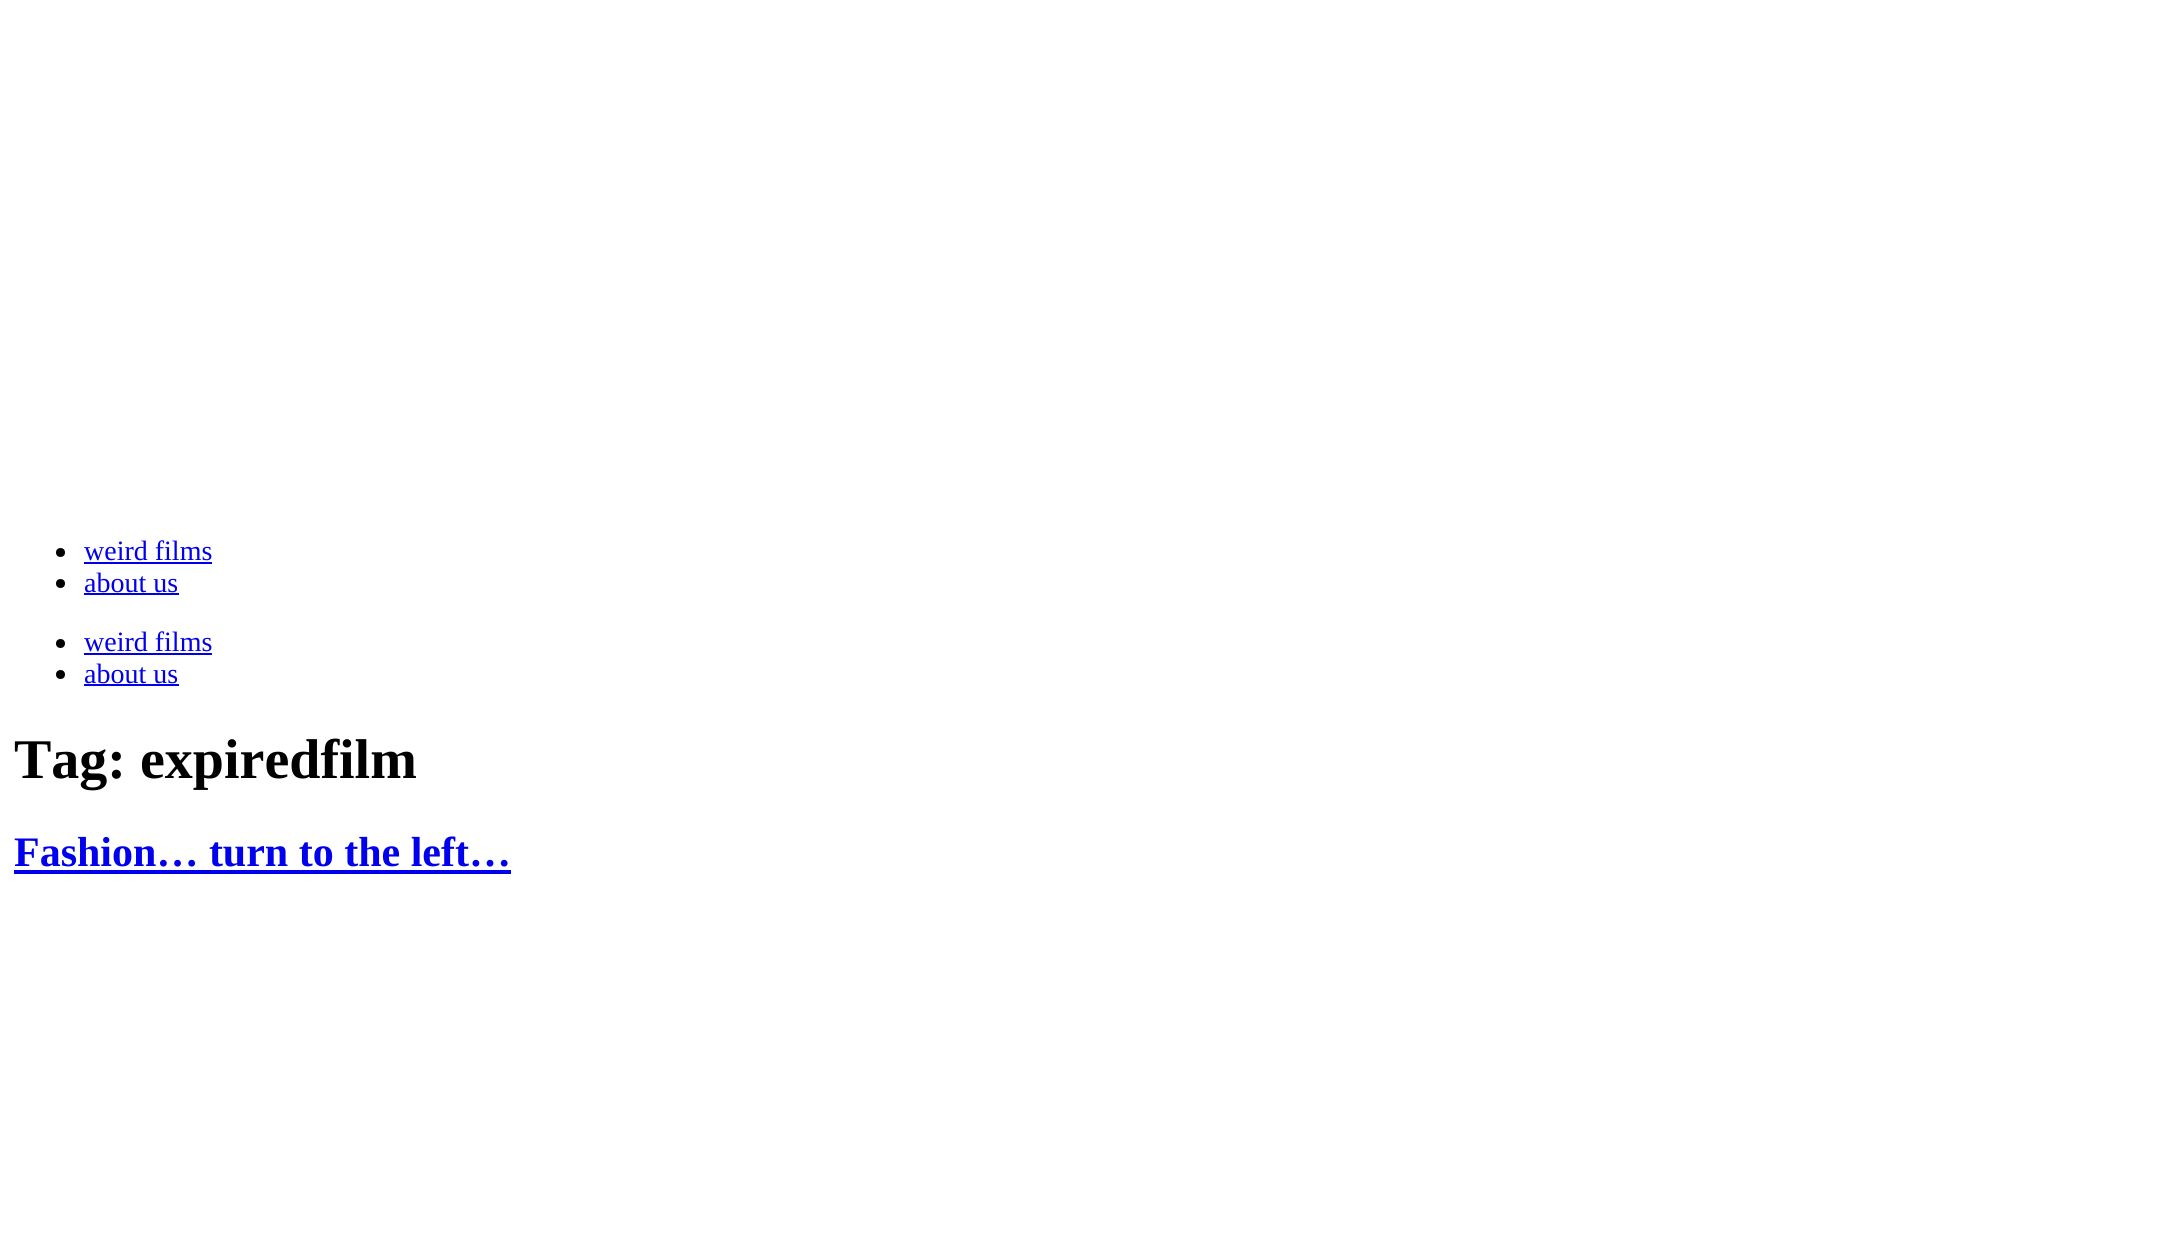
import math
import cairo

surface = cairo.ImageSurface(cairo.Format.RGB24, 2164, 1257)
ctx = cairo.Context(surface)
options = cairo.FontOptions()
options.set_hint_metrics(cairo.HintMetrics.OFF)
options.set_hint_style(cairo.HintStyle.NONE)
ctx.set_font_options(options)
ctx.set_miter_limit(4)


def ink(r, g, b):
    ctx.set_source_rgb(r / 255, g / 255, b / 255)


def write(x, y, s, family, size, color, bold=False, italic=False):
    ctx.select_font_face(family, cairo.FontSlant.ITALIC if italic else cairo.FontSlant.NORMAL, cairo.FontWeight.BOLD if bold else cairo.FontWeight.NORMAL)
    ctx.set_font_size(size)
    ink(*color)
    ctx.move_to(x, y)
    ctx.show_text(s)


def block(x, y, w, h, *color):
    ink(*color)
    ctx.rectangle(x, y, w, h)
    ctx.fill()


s1 = dict(family="Liberation Serif", size=28, color=(0, 0, 238))
s2 = dict(family="Liberation Serif", size=56, color=(0, 0, 0), bold=True)
s3 = dict(family="Liberation Serif", size=42, color=(0, 0, 238), bold=True)

ink(255, 255, 255)
ctx.paint()
ink(0, 0, 0)
ctx.arc(60.5, 552.5, 4.5, 0, 2 * math.pi)
ctx.fill()
write(84, 560, "weird films", **s1)
block(84, 562, 128, 2, 0, 0, 238)
ink(0, 0, 0)
ctx.new_path()
ctx.arc(60.5, 583.5, 4.5, 0, 2 * math.pi)
ctx.fill()
write(84, 592, "about us", **s1)
block(84, 593, 95, 2, 0, 0, 238)
ink(0, 0, 0)
ctx.new_path()
ctx.arc(60.5, 643.5, 4.5, 0, 2 * math.pi)
ctx.fill()
write(84, 651, "weird films", **s1)
block(84, 653, 128, 2, 0, 0, 238)
ink(0, 0, 0)
ctx.new_path()
ctx.arc(60.5, 674.5, 4.5, 0, 2 * math.pi)
ctx.fill()
write(84, 683, "about us", **s1)
block(84, 684, 95, 2, 0, 0, 238)
write(14, 778, "Tag: expiredfilm", **s2)
write(14, 866, "Fashion… turn to the left…", **s3)
block(14, 870, 497, 4, 0, 0, 238)
surface.write_to_png("screenshot.png")
